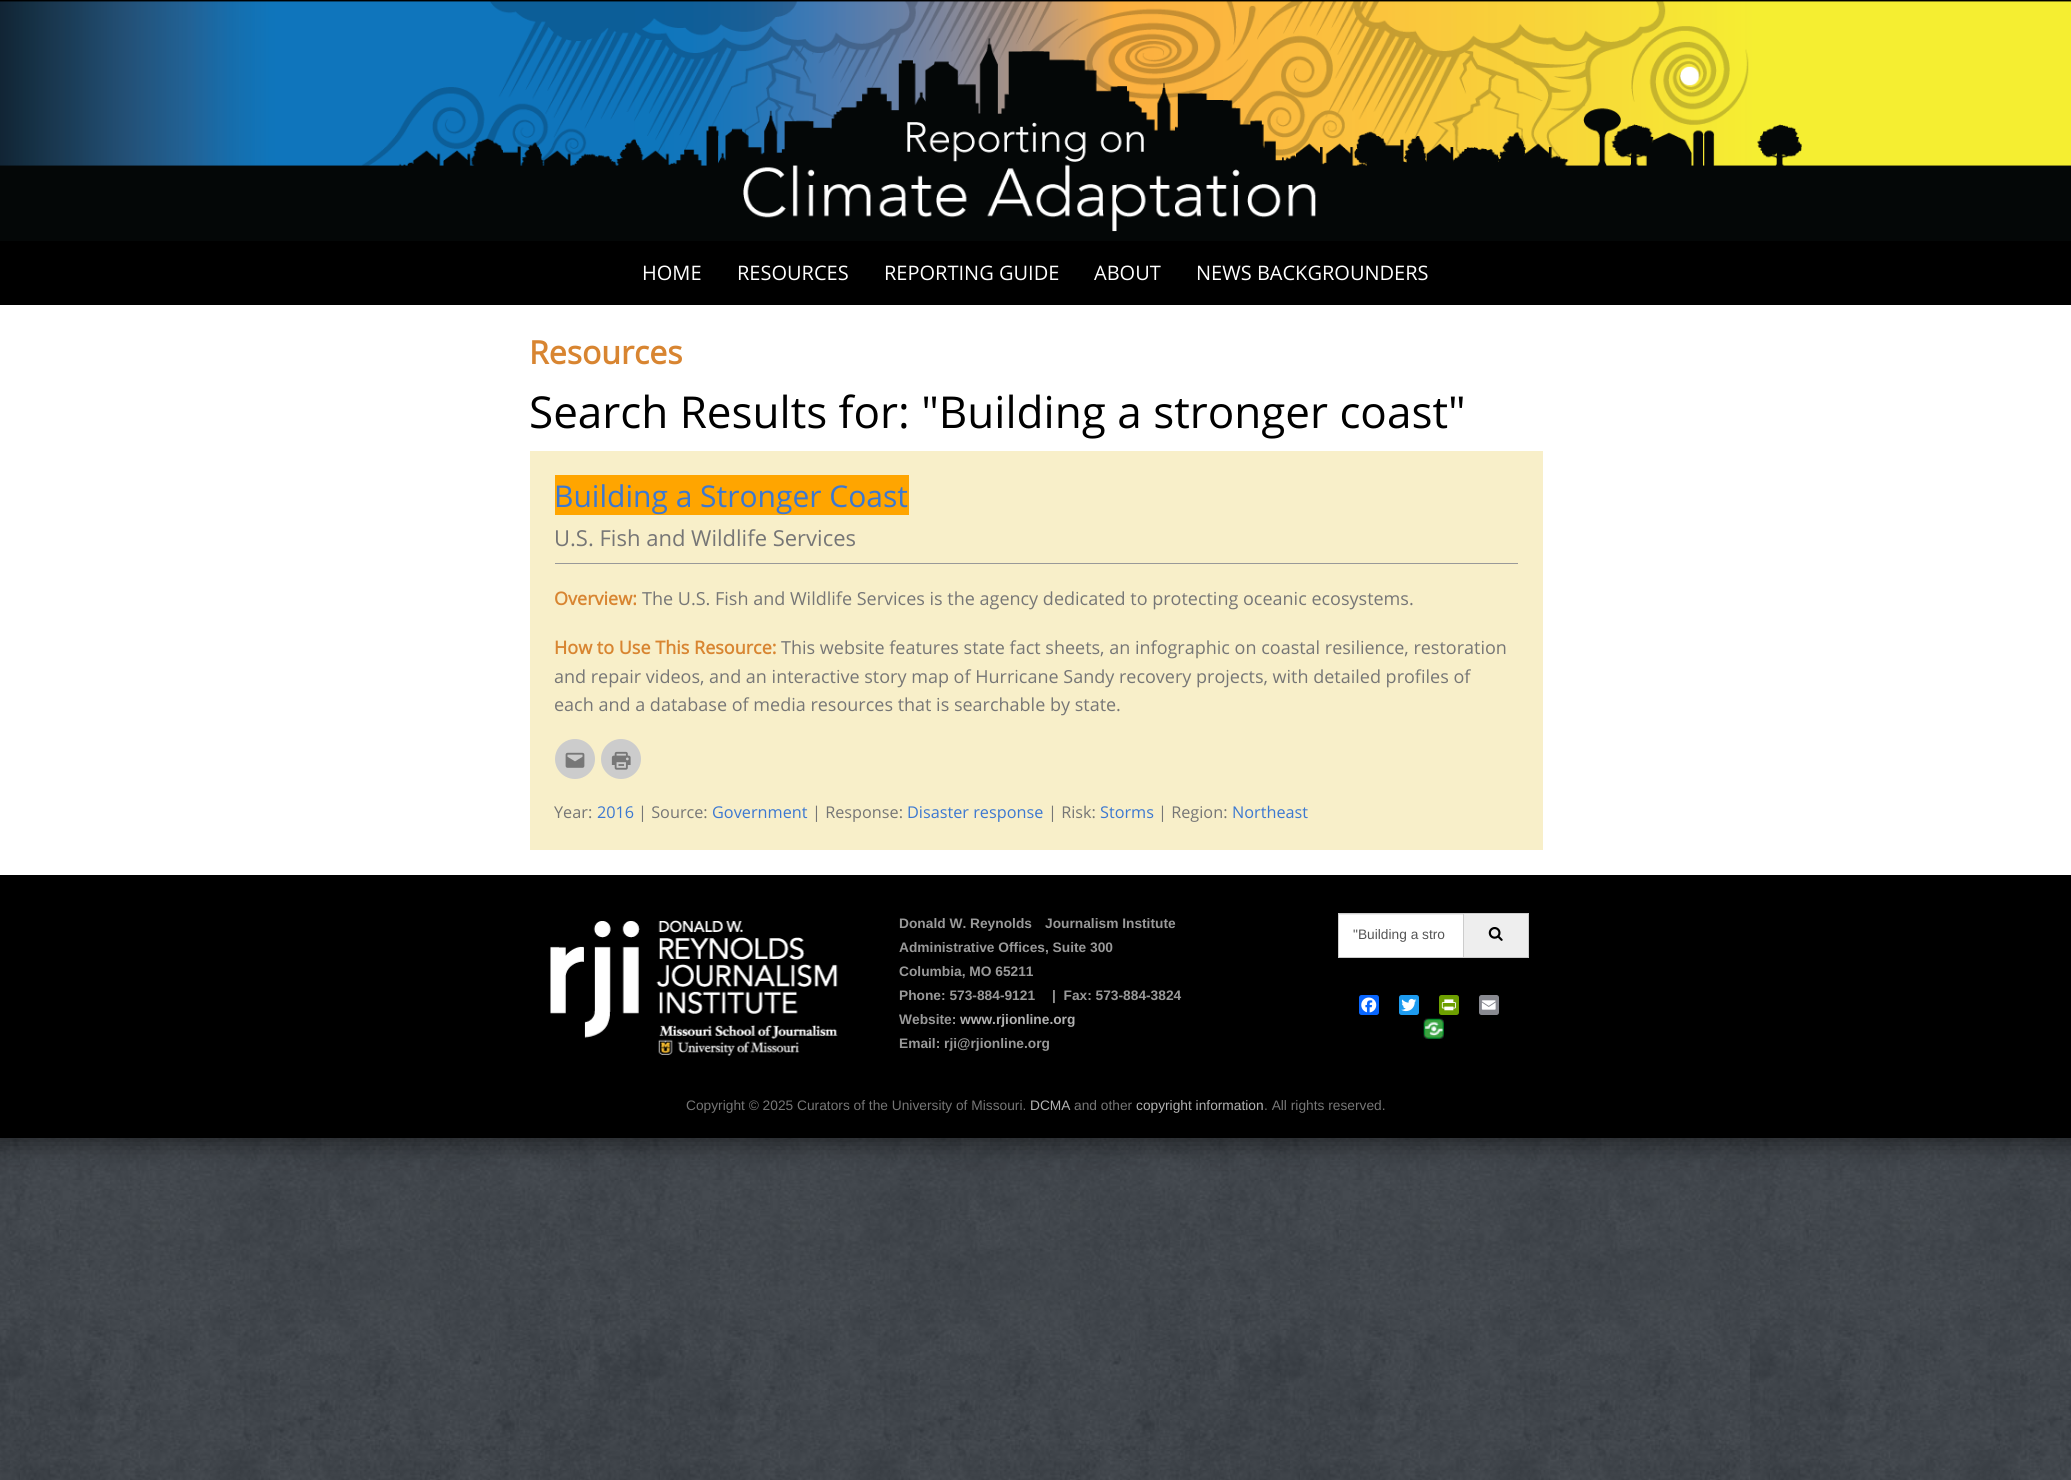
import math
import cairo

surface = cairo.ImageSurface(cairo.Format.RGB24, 2071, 1480)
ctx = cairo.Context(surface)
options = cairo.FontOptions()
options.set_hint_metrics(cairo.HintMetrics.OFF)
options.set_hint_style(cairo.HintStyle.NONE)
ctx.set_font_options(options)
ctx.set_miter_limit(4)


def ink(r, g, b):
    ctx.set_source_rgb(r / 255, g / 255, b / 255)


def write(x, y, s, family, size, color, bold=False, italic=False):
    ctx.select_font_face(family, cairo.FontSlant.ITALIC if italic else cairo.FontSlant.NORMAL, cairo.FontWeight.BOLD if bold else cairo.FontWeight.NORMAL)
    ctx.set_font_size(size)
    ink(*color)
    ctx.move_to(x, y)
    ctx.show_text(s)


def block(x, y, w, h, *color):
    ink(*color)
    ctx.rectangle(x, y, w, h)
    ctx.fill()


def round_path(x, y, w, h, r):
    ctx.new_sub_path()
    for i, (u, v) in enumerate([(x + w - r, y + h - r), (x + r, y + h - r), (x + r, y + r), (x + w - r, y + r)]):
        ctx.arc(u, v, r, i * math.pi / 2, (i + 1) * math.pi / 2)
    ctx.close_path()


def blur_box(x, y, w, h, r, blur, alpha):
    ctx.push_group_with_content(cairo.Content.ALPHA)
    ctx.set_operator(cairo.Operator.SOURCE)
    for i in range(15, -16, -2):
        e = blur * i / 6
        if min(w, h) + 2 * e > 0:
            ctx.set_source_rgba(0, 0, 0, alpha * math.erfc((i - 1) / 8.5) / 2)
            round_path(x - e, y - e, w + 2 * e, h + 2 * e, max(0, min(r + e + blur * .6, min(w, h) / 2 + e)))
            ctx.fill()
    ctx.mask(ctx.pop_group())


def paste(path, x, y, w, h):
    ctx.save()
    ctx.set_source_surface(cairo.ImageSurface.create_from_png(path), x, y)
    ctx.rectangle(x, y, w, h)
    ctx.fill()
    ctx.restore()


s1 = dict(family="Open Sans", size=20, color=(255, 255, 255))
s2 = dict(family="Open Sans", size=32, color=(216, 133, 49), bold=True)
s3 = dict(family="Open Sans", size=44, color=(0, 0, 0))
s4 = dict(family="Open Sans", size=30, color=(60, 120, 209))
s5 = dict(family="Open Sans", size=22, color=(118, 118, 118))
s6 = dict(family="Open Sans", size=18, color=(216, 133, 49), bold=True)
s7 = dict(family="Open Sans", size=18, color=(118, 118, 118))
s8 = dict(family="Open Sans", size=16.25, color=(118, 118, 118))
s9 = dict(family="Open Sans", size=16.25, color=(60, 120, 209))
s10 = dict(family="Liberation Sans", size=13.75, color=(153, 153, 153), bold=True)
s11 = dict(family="Liberation Sans", size=13.75, color=(178, 178, 178), bold=True)
s12 = dict(family="Liberation Sans", size=13.75, color=(85, 85, 85))
s13 = dict(family="Liberation Sans", size=13.75, color=(118, 118, 118))
s14 = dict(family="Liberation Sans", size=13.75, color=(178, 178, 178))

ink(255, 255, 255)
ctx.paint()
paste("pic1.png", 0, 1138, 2071, 342)
ink(0, 0, 0)
blur_box(-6, -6, 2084, 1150, 0, 12.5, 0.5)
block(0, 0, 2071, 2, 0, 0, 0)
paste("pic2.png", 0, 1, 2071, 240)
block(0, 241, 2071, 64, 0, 0, 0)
write(642, 280, "HOME", **s1)
write(737, 280, "RESOURCES", **s1)
write(884, 280, "REPORTING GUIDE", **s1)
write(1094, 280, "ABOUT", **s1)
write(1196, 280, "NEWS BACKGROUNDERS", **s1)
block(0, 305, 2071, 570, 255, 255, 255)
write(529, 364, "Resources", **s2)
write(529, 428, "Search Results for: \"Building a stronger coast\"", **s3)
block(530, 451, 1013, 399, 248, 239, 201)
block(555, 563, 963, 1, 153, 153, 153)
block(555, 475, 354, 40, 255, 165, 0)
write(554, 507, "Building a Stronger Coast", **s4)
write(554, 546, "U.S. Fish and Wildlife Services", **s5)
write(554, 605, "Overview:", **s6)
write(642, 605, "The U.S. Fish and Wildlife Services is the agency dedicated to protecting oceanic ecosystems.", **s7)
write(554, 654, "How to Use This Resource:", **s6)
write(781, 654, "This website features state fact sheets, an infographic on coastal resilience, restoration", **s7)
write(554, 683, "and repair videos, and an interactive story map of Hurricane Sandy recovery projects, with detailed profiles of", **s7)
write(554, 711, "each and a database of media resources that is searchable by state.", **s7)
ink(204, 204, 204)
ctx.new_path()
ctx.arc(575, 759, 20, 0, 2 * math.pi)
ctx.fill()
paste("pic3.png", 565, 752, 20, 16)
ctx.arc(621, 759, 20, 0, 2 * math.pi)
ctx.fill()
paste("pic4.png", 611, 751, 20, 19)
write(554, 818, "Year:", **s8)
write(597, 818, "2016", **s9)
write(638, 818, "| Source:", **s8)
write(712, 818, "Government", **s9)
write(812, 818, "| Response:", **s8)
write(907, 818, "Disaster response", **s9)
write(1048, 818, "| Risk:", **s8)
write(1100, 818, "Storms", **s9)
write(1158, 818, "| Region:", **s8)
write(1232, 818, "Northeast", **s9)
block(0, 875, 2071, 263, 0, 0, 0)
paste("pic5.png", 550, 920, 288, 136)
write(899, 928, "Donald W. Reynolds", **s10)
write(1045, 928, "Journalism Institute", **s10)
write(899, 952, "Administrative Offices, Suite 300", **s10)
write(899, 976, "Columbia, MO 65211", **s10)
write(899, 1000, "Phone: 573-884-9121", **s10)
write(1052, 1000, "|  Fax: 573-884-3824", **s10)
write(899, 1024, "Website:", **s10)
write(960, 1024, "www.rjionline.org", **s11)
write(899, 1048, "Email: rji@rjionline.org", **s10)
block(1339, 915, 124, 42, 255, 255, 255)
block(1339, 914, 125, 1, 236, 236, 236)
ctx.rectangle(1338.5, 913.5, 126, 44)
ink(204, 204, 204)
ctx.set_line_width(1)
ctx.stroke()
write(1353, 939, "\"Building a stro", **s12)
ink(238, 238, 238)
ctx.rectangle(1463.5, 913.5, 65, 44)
ctx.fill_preserve()
ink(204, 204, 204)
ctx.stroke()
paste("pic6.png", 1488, 927, 15, 14)
ink(8, 102, 255)
round_path(1359, 995, 20, 20, 2.5)
ctx.fill()
paste("pic7.png", 1361, 997, 16, 16)
ink(29, 155, 240)
round_path(1399, 995, 20, 20, 2.5)
ctx.fill()
paste("pic8.png", 1401, 998, 16, 14)
ink(109, 159, 0)
round_path(1439, 995, 20, 20, 2.5)
ctx.fill()
paste("pic9.png", 1441, 999, 15, 12)
ink(136, 137, 144)
round_path(1479, 995, 20, 20, 2.5)
ctx.fill()
paste("pic10.png", 1481, 1000, 15, 10)
paste("pic11.png", 1423, 1018, 21, 21)
write(686, 1110, "Copyright © 2025 Curators of the University of Missouri.", **s13)
write(1030, 1110, "DCMA", **s14)
write(1074, 1110, "and other", **s13)
write(1136, 1110, "copyright information", **s14)
write(1264, 1110, ". All rights reserved.", **s13)
surface.write_to_png("screenshot.png")
